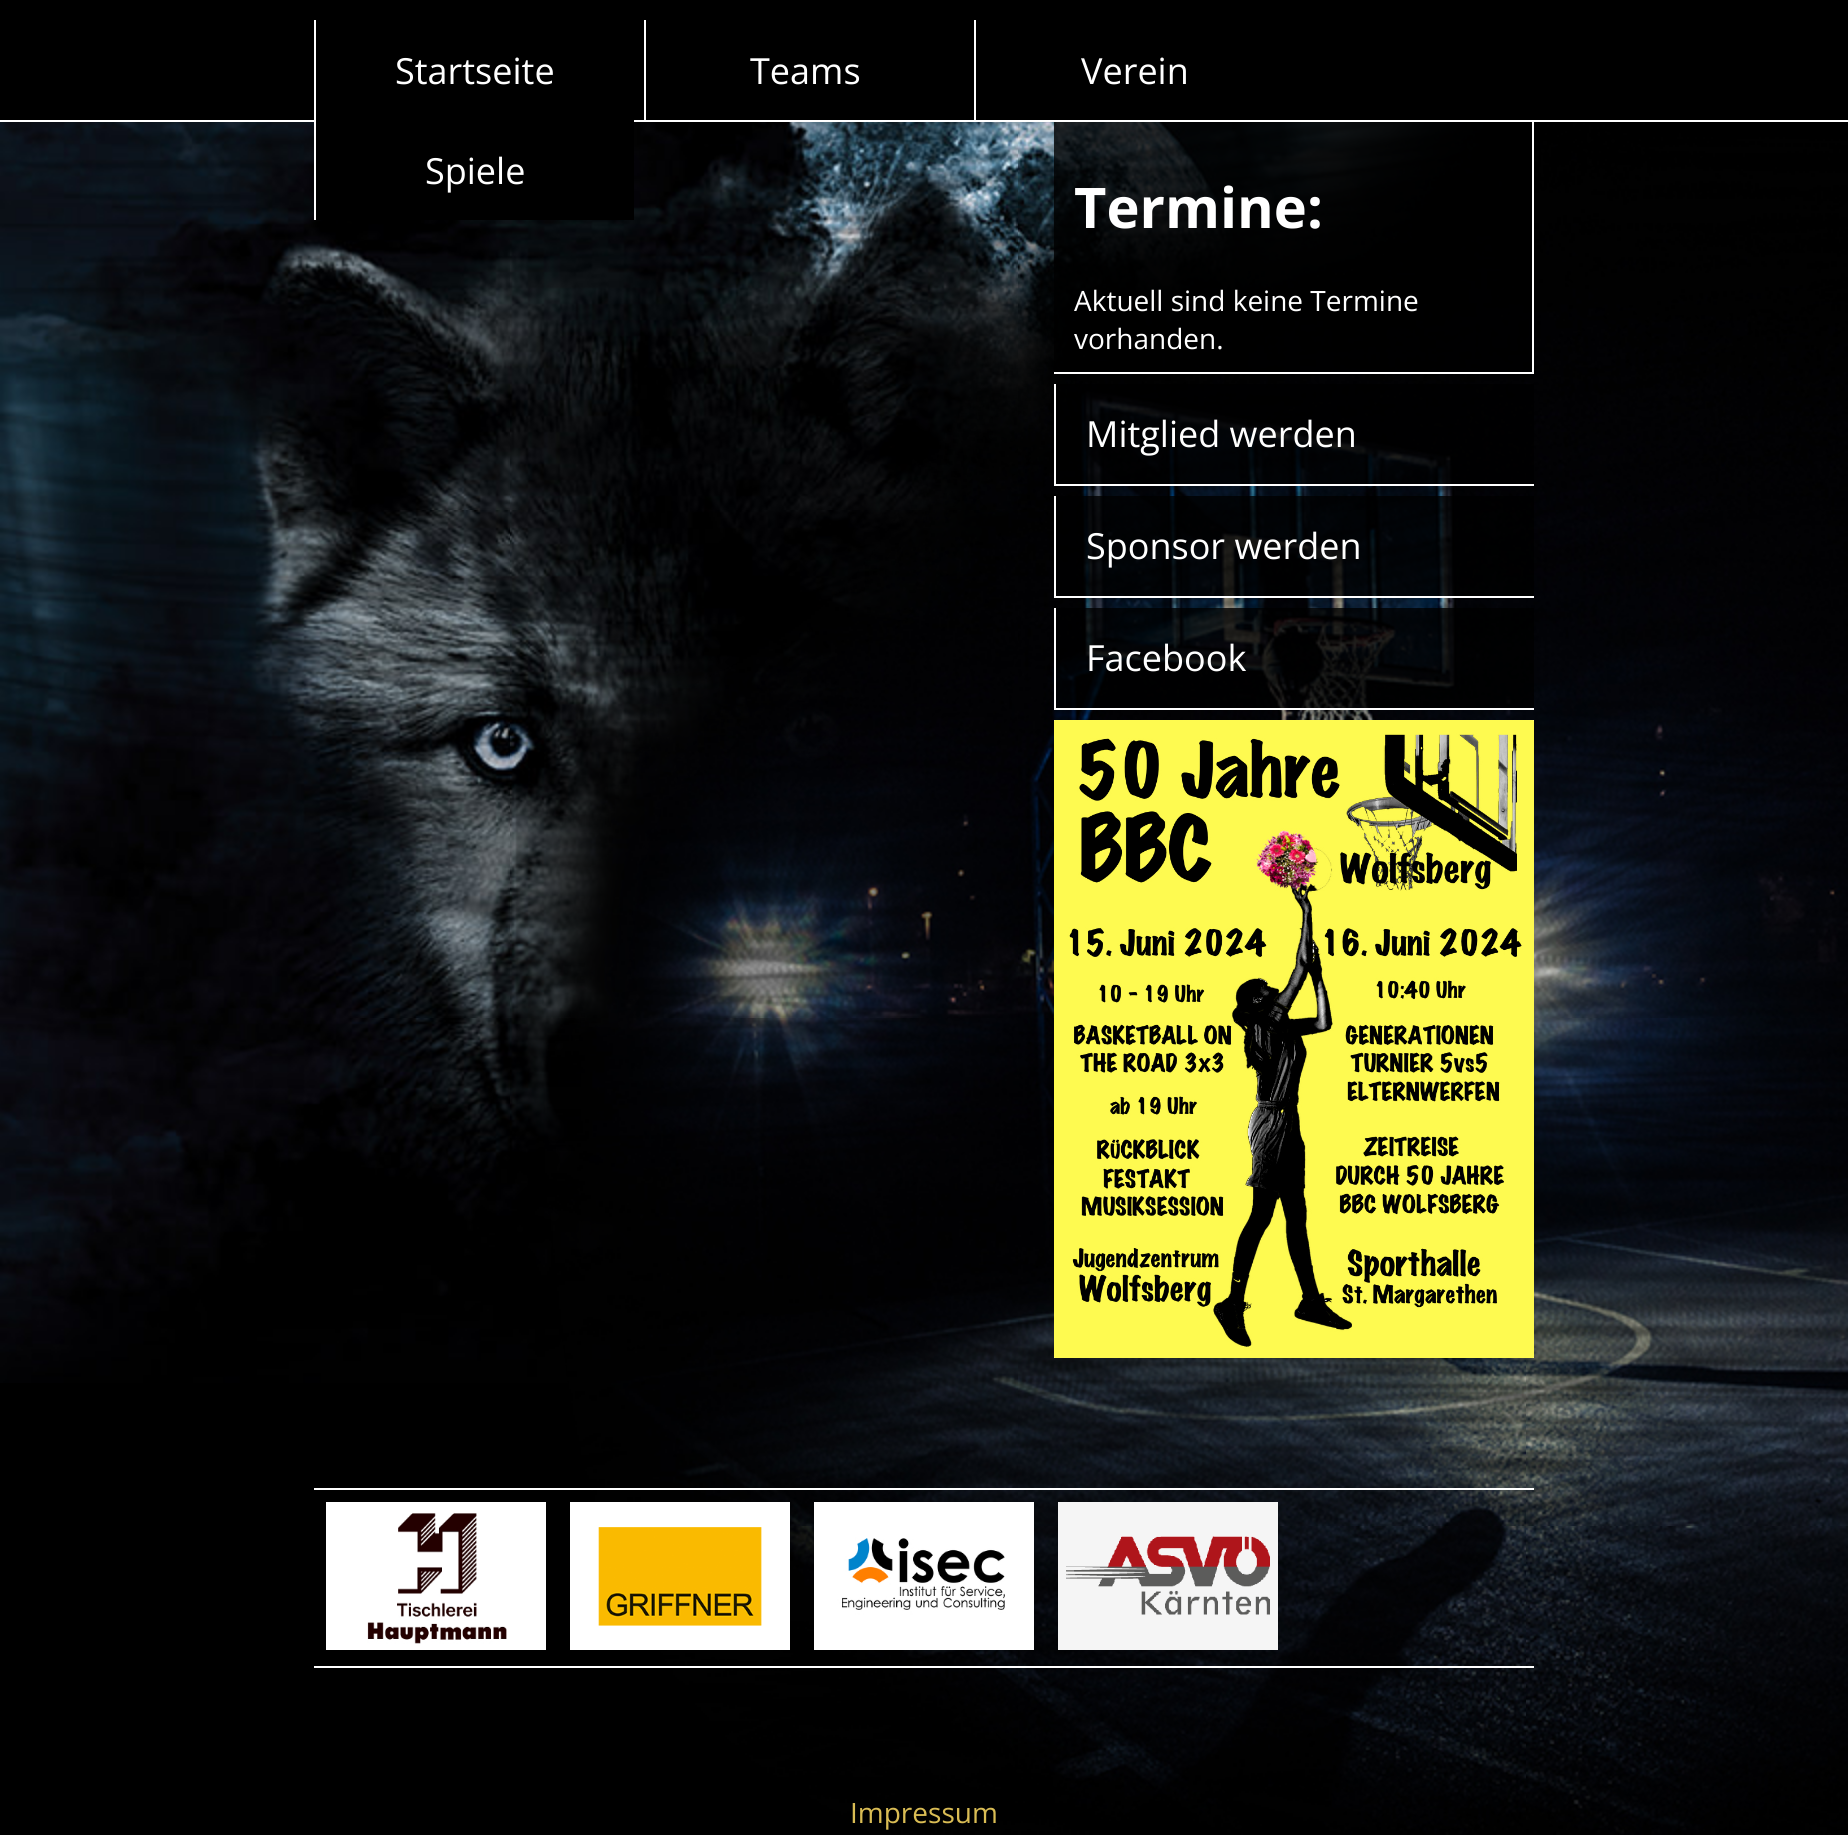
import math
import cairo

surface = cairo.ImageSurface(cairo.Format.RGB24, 1848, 1835)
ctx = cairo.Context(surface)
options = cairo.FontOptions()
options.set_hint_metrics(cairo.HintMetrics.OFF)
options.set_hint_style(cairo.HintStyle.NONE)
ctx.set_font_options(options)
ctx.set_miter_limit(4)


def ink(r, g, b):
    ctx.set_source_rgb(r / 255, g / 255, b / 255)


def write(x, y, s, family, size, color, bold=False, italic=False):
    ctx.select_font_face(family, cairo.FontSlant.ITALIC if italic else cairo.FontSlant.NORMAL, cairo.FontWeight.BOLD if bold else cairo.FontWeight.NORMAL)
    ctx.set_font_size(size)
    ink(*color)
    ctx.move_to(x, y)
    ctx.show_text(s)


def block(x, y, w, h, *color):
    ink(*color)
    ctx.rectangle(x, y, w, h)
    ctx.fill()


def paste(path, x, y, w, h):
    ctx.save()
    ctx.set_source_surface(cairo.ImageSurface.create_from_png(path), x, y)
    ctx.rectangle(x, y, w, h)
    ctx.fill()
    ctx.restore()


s1 = dict(family="Open Sans", size=36, color=(255, 255, 255))
s2 = dict(family="Open Sans", size=56, color=(255, 255, 255), bold=True)
s3 = dict(family="Open Sans", size=28, color=(255, 255, 255))
s4 = dict(family="Open Sans", size=28, color=(217, 188, 84))

ink(0, 0, 0)
ctx.paint()
paste("pic6.png", 0, 122, 1585, 1261)
paste("pic7.png", 515, 122, 1333, 1713)
block(1532, 116, 2, 258, 255, 255, 255)
block(1532, 116, 2, 4, 0, 0, 0)
block(0, 120, 1848, 2, 255, 255, 255)
block(314, 20, 2, 200, 255, 255, 255)
write(395, 84, "Startseite", **s1)
block(644, 20, 2, 100, 255, 255, 255)
write(750, 84, "Teams", **s1)
block(974, 20, 2, 100, 255, 255, 255)
write(1081, 84, "Verein", **s1)
block(316, 120, 318, 100, 0, 0, 0)
write(425, 184, "Spiele", **s1)
ctx.set_source_rgba(0, 0, 0, 0.8)
ctx.rectangle(1054, 122, 478, 250)
ctx.fill()
block(1054, 372, 480, 2, 255, 255, 255)
write(1074, 228, "Termine:", **s2)
write(1074, 311, "Aktuell sind keine Termine", **s3)
write(1074, 349, "vorhanden.", **s3)
ctx.set_source_rgba(0, 0, 0, 0.8)
ctx.rectangle(1056, 384, 478, 100)
ctx.fill()
block(1054, 484, 480, 2, 255, 255, 255)
block(1054, 384, 2, 102, 255, 255, 255)
write(1086, 447, "Mitglied werden", **s1)
ctx.set_source_rgba(0, 0, 0, 0.8)
ctx.rectangle(1056, 496, 478, 100)
ctx.fill()
block(1054, 596, 480, 2, 255, 255, 255)
block(1054, 496, 2, 102, 255, 255, 255)
write(1086, 559, "Sponsor werden", **s1)
ctx.set_source_rgba(0, 0, 0, 0.8)
ctx.rectangle(1056, 608, 478, 100)
ctx.fill()
block(1054, 708, 480, 2, 255, 255, 255)
block(1054, 608, 2, 102, 255, 255, 255)
write(1086, 671, "Facebook", **s1)
paste("pic1.png", 1054, 720, 480, 638)
block(314, 1488, 1220, 2, 255, 255, 255)
block(314, 1666, 1220, 2, 255, 255, 255)
paste("pic2.png", 326, 1502, 220, 148)
paste("pic3.png", 570, 1502, 220, 148)
paste("pic4.png", 814, 1502, 220, 148)
paste("pic5.png", 1058, 1502, 220, 148)
write(850, 1823, "Impressum", **s4)
surface.write_to_png("screenshot.png")
